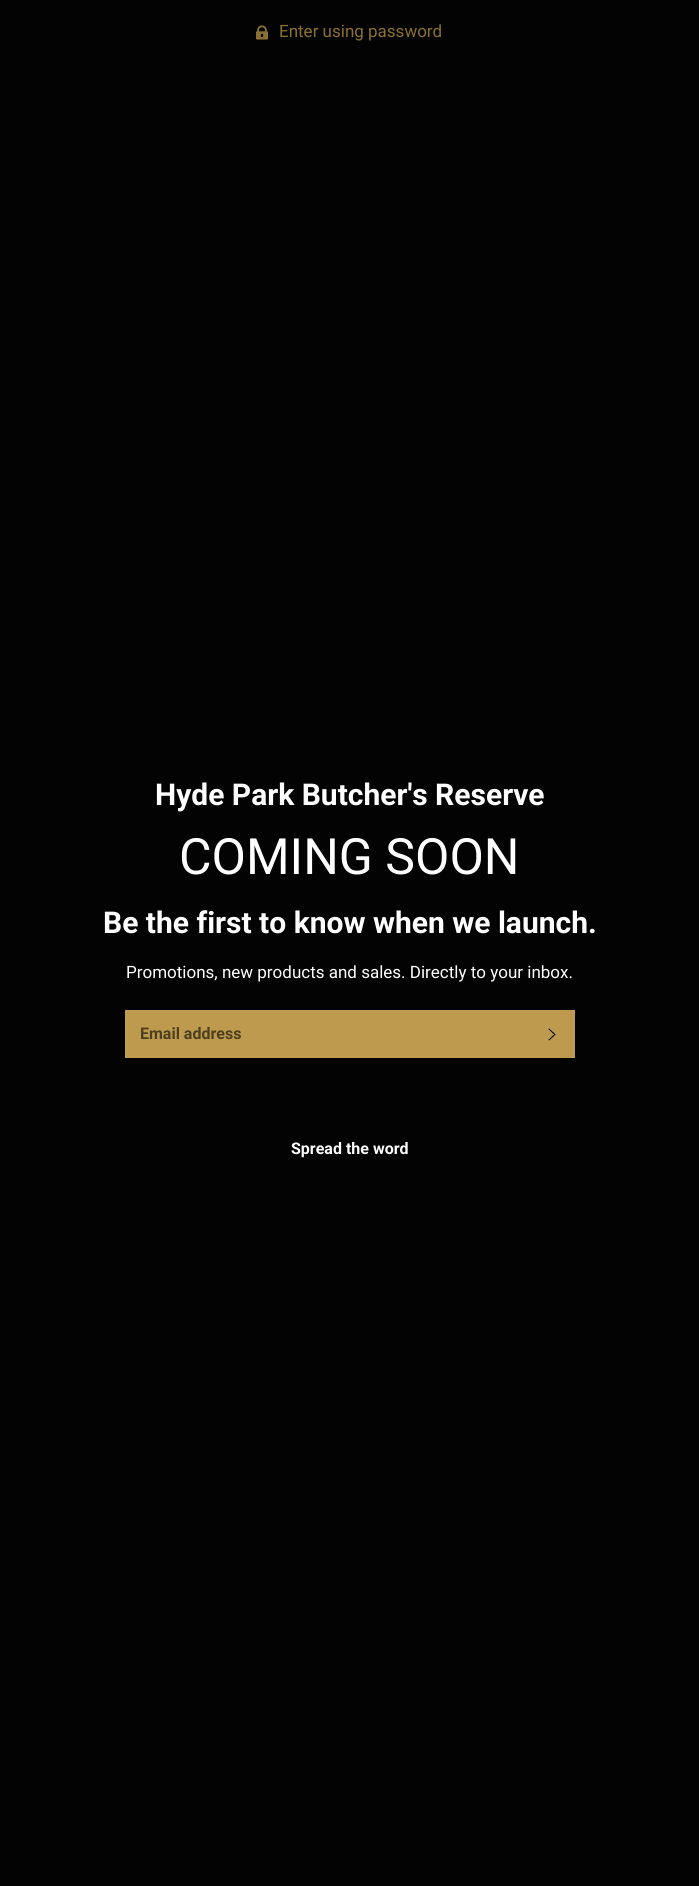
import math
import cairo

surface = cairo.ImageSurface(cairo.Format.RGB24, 699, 1886)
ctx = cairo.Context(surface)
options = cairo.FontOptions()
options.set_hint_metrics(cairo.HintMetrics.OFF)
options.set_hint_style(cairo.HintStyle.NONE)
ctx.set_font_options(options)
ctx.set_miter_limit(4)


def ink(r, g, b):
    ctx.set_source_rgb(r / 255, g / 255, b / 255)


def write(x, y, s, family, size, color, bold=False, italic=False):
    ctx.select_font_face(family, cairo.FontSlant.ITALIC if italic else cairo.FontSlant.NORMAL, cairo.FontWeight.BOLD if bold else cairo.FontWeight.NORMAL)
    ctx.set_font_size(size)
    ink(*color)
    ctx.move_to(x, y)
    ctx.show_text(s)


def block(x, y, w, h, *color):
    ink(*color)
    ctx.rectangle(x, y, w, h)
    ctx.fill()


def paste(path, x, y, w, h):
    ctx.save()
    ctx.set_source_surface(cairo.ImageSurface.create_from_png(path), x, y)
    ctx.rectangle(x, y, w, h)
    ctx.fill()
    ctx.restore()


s1 = dict(family="Roboto", size=17, color=(140, 112, 51))
s2 = dict(family="Roboto", size=30, color=(255, 255, 255), bold=True)
s3 = dict(family="Roboto", size=50, color=(255, 255, 255))
s4 = dict(family="Roboto", size=17, color=(255, 255, 255))
s5 = dict(family="Roboto", size=16, color=(76, 62, 31), bold=True)
s6 = dict(family="Roboto", size=16, color=(255, 255, 255), bold=True)

ink(3, 3, 3)
ctx.paint()
paste("pic1.png", 256, 25, 12, 15)
write(279, 37, "Enter using password", **s1)
write(155, 805, "Hyde Park Butcher's Reserve", **s2)
write(179, 874, "COMING SOON", **s3)
write(103, 933, "Be the first to know when we launch.", **s2)
write(126, 978, "Promotions, new products and sales. Directly to your inbox.", **s4)
block(125, 1010, 450, 48, 190, 154, 78)
write(140, 1039, "Email address", **s5)
paste("pic2.png", 548, 1028, 8, 13)
write(291, 1154, "Spread the word", **s6)
surface.write_to_png("screenshot.png")
